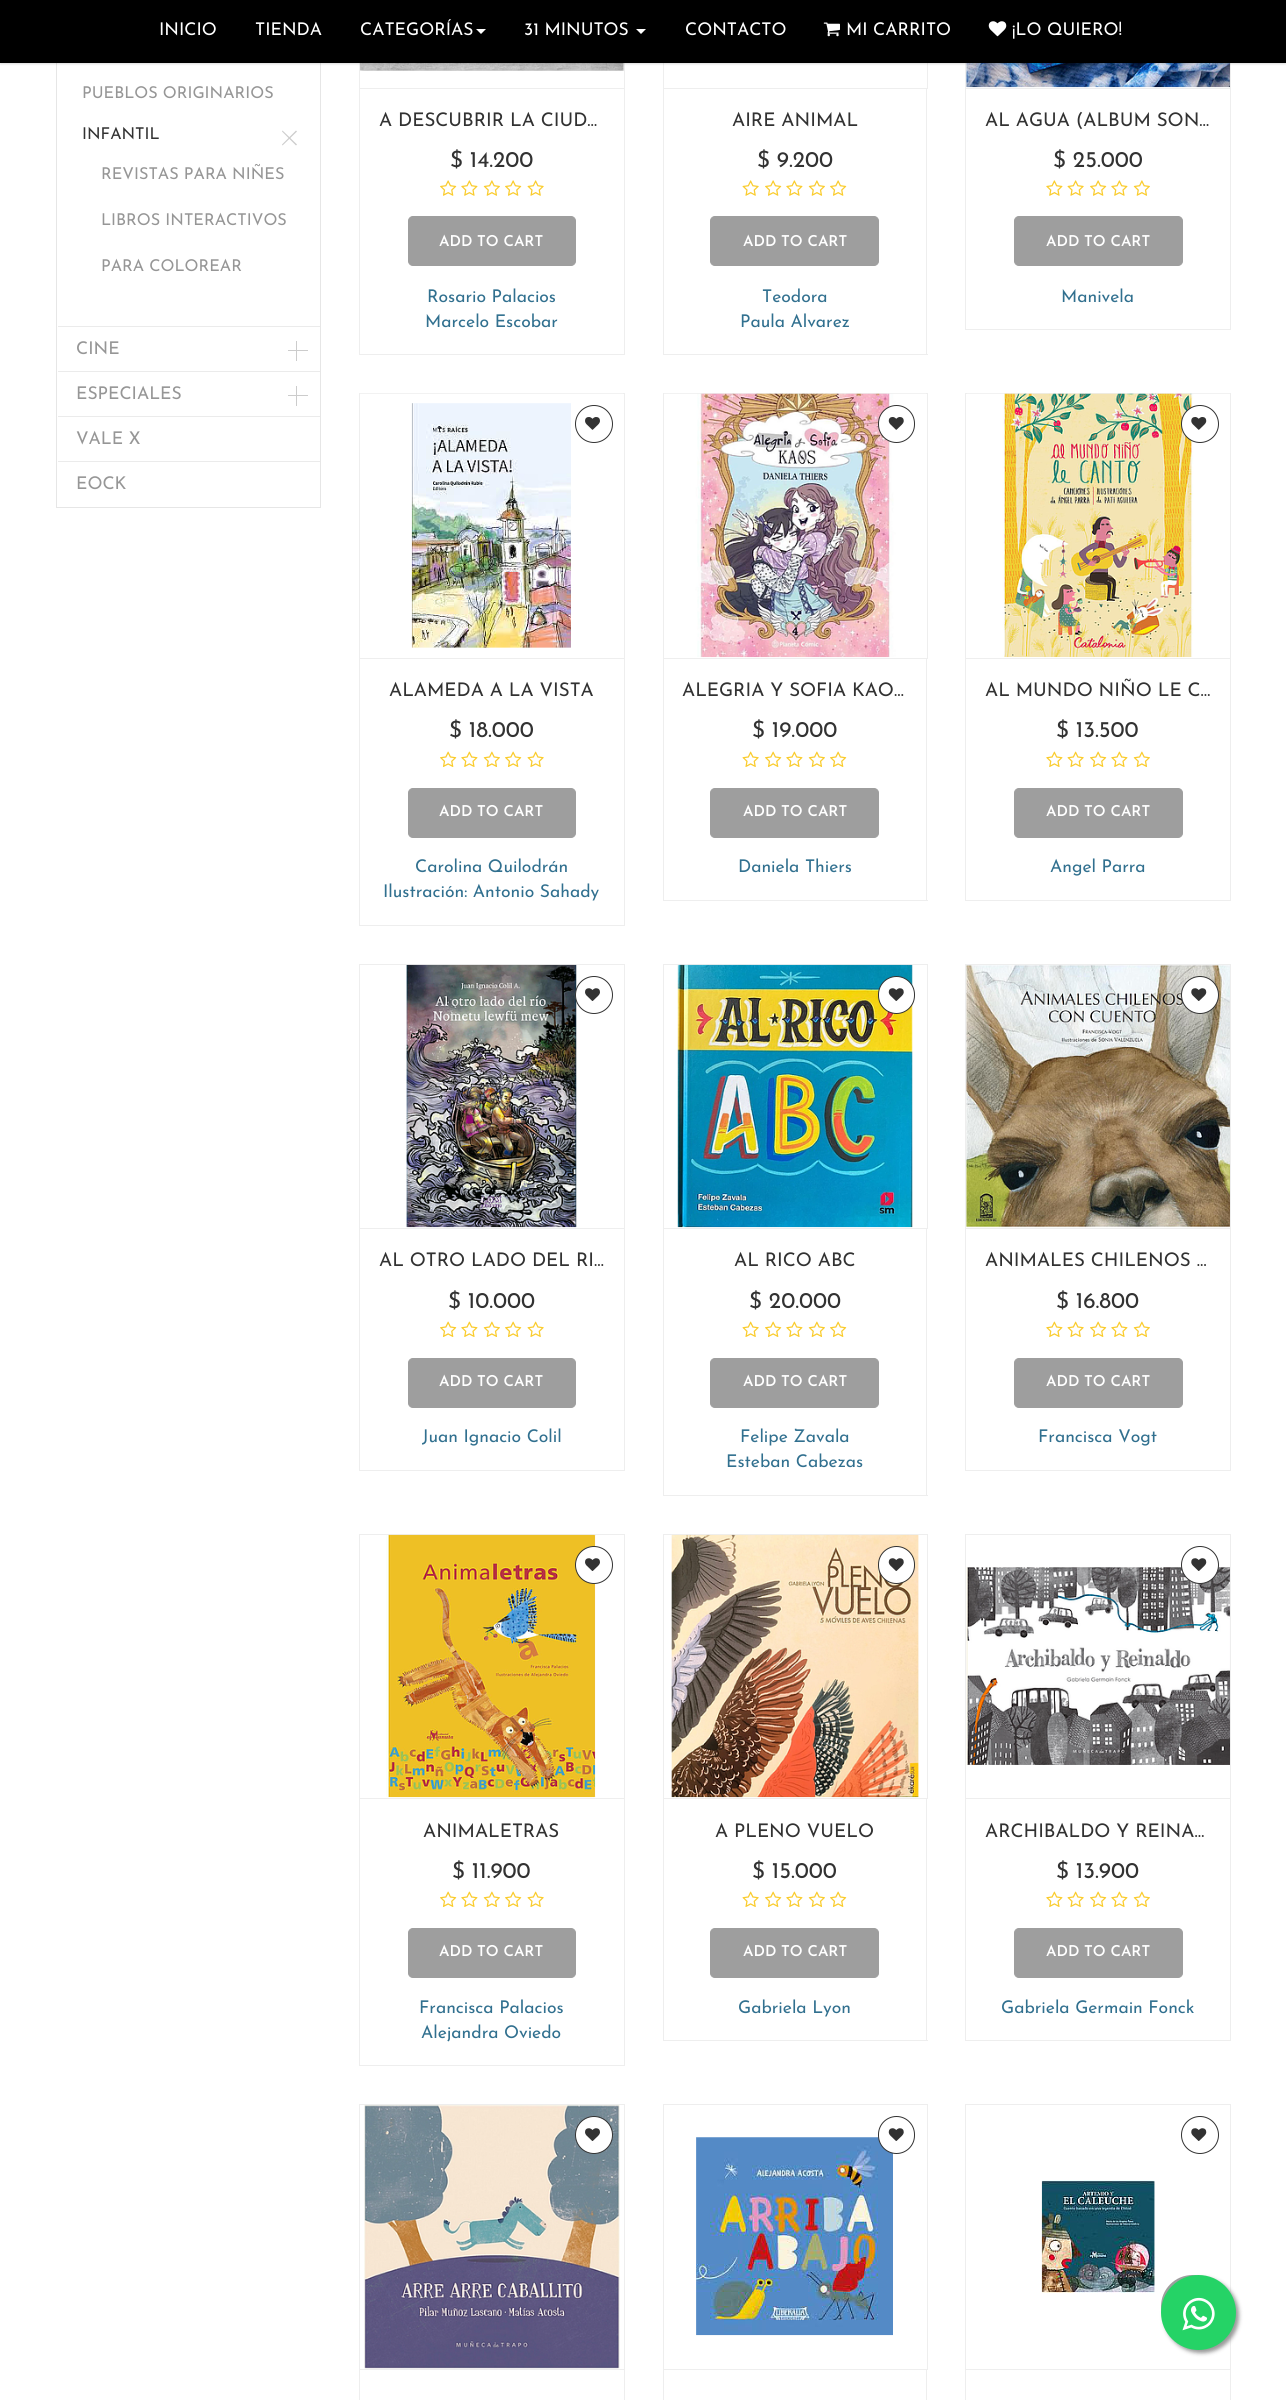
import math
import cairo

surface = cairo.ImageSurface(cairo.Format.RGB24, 1286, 2400)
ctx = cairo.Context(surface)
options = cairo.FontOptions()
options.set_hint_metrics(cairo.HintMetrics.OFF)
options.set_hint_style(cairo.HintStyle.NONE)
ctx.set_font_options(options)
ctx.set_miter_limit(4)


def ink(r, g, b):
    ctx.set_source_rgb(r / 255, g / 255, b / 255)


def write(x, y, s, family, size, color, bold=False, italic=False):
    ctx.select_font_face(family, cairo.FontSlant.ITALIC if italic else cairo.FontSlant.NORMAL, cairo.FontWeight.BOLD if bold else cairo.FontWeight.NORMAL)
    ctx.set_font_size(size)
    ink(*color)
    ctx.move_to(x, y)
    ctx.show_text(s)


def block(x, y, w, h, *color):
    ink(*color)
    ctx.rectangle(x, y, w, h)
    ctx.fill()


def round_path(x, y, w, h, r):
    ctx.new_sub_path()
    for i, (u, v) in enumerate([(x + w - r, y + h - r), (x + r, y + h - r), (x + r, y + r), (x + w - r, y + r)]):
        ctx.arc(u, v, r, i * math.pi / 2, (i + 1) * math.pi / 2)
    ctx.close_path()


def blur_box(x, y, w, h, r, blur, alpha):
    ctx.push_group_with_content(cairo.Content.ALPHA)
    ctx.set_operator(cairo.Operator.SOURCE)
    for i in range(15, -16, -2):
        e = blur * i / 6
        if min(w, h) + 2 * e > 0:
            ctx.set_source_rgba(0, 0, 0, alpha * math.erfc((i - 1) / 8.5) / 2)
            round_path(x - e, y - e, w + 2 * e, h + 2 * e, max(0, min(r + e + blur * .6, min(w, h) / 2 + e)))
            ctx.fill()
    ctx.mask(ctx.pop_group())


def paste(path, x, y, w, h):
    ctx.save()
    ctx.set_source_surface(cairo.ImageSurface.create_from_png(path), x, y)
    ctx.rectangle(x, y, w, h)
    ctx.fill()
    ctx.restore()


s1 = dict(family="Josefin Sans", size=17.5, color=(255, 255, 255))
s2 = dict(family="Josefin Sans", size=16.25, color=(150, 150, 150))
s3 = dict(family="Josefin Sans", size=16.25, color=(50, 50, 50))
s4 = dict(family="Josefin Sans", size=17.5, color=(150, 150, 150))
s5 = dict(family="Josefin Sans", size=18.75, color=(50, 50, 50))
s6 = dict(family="Josefin Sans", size=22.5, color=(50, 50, 50))
s7 = dict(family="Josefin Sans SemiBold", size=15, color=(255, 255, 255))
s8 = dict(family="Josefin Sans", size=17.5, color=(49, 112, 143))

ink(255, 255, 255)
ctx.paint()
ctx.rectangle(56.5, -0.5, 264, 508)
ink(230, 230, 230)
ctx.set_line_width(1)
ctx.stroke()
ctx.rectangle(359.5, -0.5, 265, 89)
ink(238, 238, 238)
ctx.stroke()
paste("pic3.png", 360, 63, 264, 8)
ctx.rectangle(663.5, -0.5, 264, 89)
ctx.stroke()
ctx.rectangle(965.5, -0.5, 265, 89)
ctx.stroke()
paste("pic8.png", 966, 63, 264, 25)
ink(0, 0, 0)
blur_box(0, 1, 1286, 63, 0, 1, 0.15)
block(0, 0, 1286, 63, 0, 0, 0)
write(159, 35, "INICIO", **s1)
write(255, 35, "TIENDA", **s1)
write(360, 35, "CATEGORÍAS", **s1)
ctx.new_path()
ctx.move_to(476, 29)
ctx.line_to(486, 29)
ctx.line_to(481, 34)
ctx.close_path()
ctx.fill()
write(524, 35, "31 MINUTOS", **s1)
ctx.new_path()
ctx.move_to(636, 29)
ctx.line_to(646, 29)
ctx.line_to(641, 34)
ctx.close_path()
ctx.fill()
write(685, 35, "CONTACTO", **s1)
paste("pic1.png", 823, 22, 17, 15)
write(846, 35, "MI CARRITO", **s1)
paste("pic2.png", 988, 21, 19, 16)
write(1012, 35, "¡LO QUIERO!", **s1)
write(82, 98, "PUEBLOS ORIGINARIOS", **s2)
write(82, 139, "INFANTIL", **s3)
ink(204, 204, 204)
ctx.new_path()
ctx.move_to(296, 130.5)
ctx.line_to(297, 131.5)
ctx.line_to(282.5, 145.5)
ctx.line_to(282, 144.5)
ctx.close_path()
ctx.fill()
ctx.new_path()
ctx.move_to(282.5, 130.5)
ctx.line_to(297, 144.5)
ctx.line_to(296, 145.5)
ctx.line_to(282, 131.5)
ctx.close_path()
ctx.fill()
write(101, 179, "REVISTAS PARA NIÑES", **s2)
write(101, 225, "LIBROS INTERACTIVOS", **s2)
write(101, 271, "PARA COLOREAR", **s2)
block(58, 326, 262, 1, 235, 235, 235)
write(76, 354, "CINE", **s4)
block(296, 341, 1, 20, 204, 204, 204)
block(288, 350, 20, 1, 204, 204, 204)
block(58, 371, 262, 1, 235, 235, 235)
write(76, 399, "ESPECIALES", **s4)
block(296, 386, 1, 20, 204, 204, 204)
block(288, 395, 20, 1, 204, 204, 204)
block(58, 416, 262, 1, 235, 235, 235)
write(76, 444, "VALE X", **s4)
block(58, 461, 262, 1, 235, 235, 235)
write(76, 489, "EOCK", **s4)
block(624, 89, 1, 266, 238, 238, 238)
block(359, 354, 266, 1, 238, 238, 238)
block(359, 89, 1, 266, 238, 238, 238)
write(379, 126, "A DESCUBRIR LA CIUD…", **s5)
write(450, 167, "$ 14.200", **s6)
paste("pic4.png", 440, 180, 17, 16)
paste("pic5.png", 461, 180, 17, 16)
paste("pic6.png", 483, 180, 17, 16)
paste("pic4.png", 505, 180, 17, 16)
paste("pic7.png", 527, 180, 17, 16)
ink(158, 158, 158)
round_path(408.5, 216.5, 167, 49, 4.5)
ctx.fill_preserve()
ctx.stroke()
write(439, 246, "ADD TO CART", **s7)
write(427, 302, "Rosario Palacios", **s8)
write(425, 327, "Marcelo Escobar", **s8)
block(926, 89, 1, 266, 238, 238, 238)
block(663, 354, 265, 1, 238, 238, 238)
block(663, 89, 1, 266, 238, 238, 238)
write(732, 126, "AIRE ANIMAL", **s5)
write(757, 167, "$ 9.200", **s6)
paste("pic7.png", 742, 180, 17, 16)
paste("pic4.png", 765, 180, 17, 16)
paste("pic5.png", 786, 180, 17, 16)
paste("pic6.png", 808, 180, 17, 16)
paste("pic4.png", 830, 180, 17, 16)
ink(158, 158, 158)
round_path(710.5, 216.5, 168, 49, 4.5)
ctx.fill_preserve()
ctx.stroke()
write(743, 246, "ADD TO CART", **s7)
write(762, 302, "Teodora", **s8)
write(740, 327, "Paula Alvarez", **s8)
block(1230, 89, 1, 241, 238, 238, 238)
block(965, 329, 266, 1, 238, 238, 238)
block(965, 89, 1, 241, 238, 238, 238)
write(985, 126, "AL AGUA (ALBUM SON…", **s5)
write(1053, 167, "$ 25.000", **s6)
paste("pic5.png", 1046, 180, 17, 16)
paste("pic7.png", 1067, 180, 17, 16)
paste("pic4.png", 1090, 180, 17, 16)
paste("pic5.png", 1111, 180, 17, 16)
paste("pic6.png", 1133, 180, 17, 16)
ink(158, 158, 158)
round_path(1014.5, 216.5, 168, 49, 4.5)
ctx.fill_preserve()
ctx.stroke()
write(1046, 246, "ADD TO CART", **s7)
write(1061, 302, "Manivela", **s8)
ctx.rectangle(359.5, 393.5, 265, 265)
ink(238, 238, 238)
ctx.stroke()
paste("pic9.png", 360, 393, 263, 255)
block(624, 659, 1, 267, 238, 238, 238)
block(359, 925, 266, 1, 238, 238, 238)
block(359, 659, 1, 267, 238, 238, 238)
write(389, 696, "ALAMEDA A LA VISTA", **s5)
write(449, 737, "$ 18.000", **s6)
paste("pic10.png", 440, 751, 17, 16)
paste("pic11.png", 461, 751, 17, 16)
paste("pic12.png", 483, 751, 17, 16)
paste("pic10.png", 505, 751, 17, 16)
paste("pic13.png", 527, 751, 17, 16)
ctx.arc(594, 424, 18.5, 0, 2 * math.pi)
ctx.stroke()
paste("pic14.png", 585, 417, 15, 13)
ink(158, 158, 158)
round_path(408.5, 788.5, 167, 49, 4.5)
ctx.fill_preserve()
ctx.stroke()
write(439, 816, "ADD TO CART", **s7)
write(415, 872, "Carolina Quilodrán", **s8)
write(383, 897, "Ilustración: Antonio Sahady", **s8)
ctx.rectangle(663.5, 393.5, 264, 265)
ink(238, 238, 238)
ctx.stroke()
paste("pic15.png", 664, 393, 262, 265)
block(926, 659, 1, 242, 238, 238, 238)
block(663, 900, 265, 1, 238, 238, 238)
block(663, 659, 1, 242, 238, 238, 238)
write(682, 696, "ALEGRIA Y SOFIA KAO…", **s5)
write(752, 737, "$ 19.000", **s6)
paste("pic13.png", 742, 751, 17, 16)
paste("pic10.png", 765, 751, 17, 16)
paste("pic11.png", 786, 751, 17, 16)
paste("pic12.png", 808, 751, 17, 16)
paste("pic10.png", 830, 751, 17, 16)
ink(255, 255, 255)
round_path(878.5, 405.5, 36, 37, 18)
ctx.fill_preserve()
ink(50, 50, 50)
ctx.stroke()
paste("pic16.png", 888, 417, 16, 13)
ink(158, 158, 158)
round_path(710.5, 788.5, 168, 49, 4.5)
ctx.fill_preserve()
ctx.stroke()
write(743, 816, "ADD TO CART", **s7)
write(738, 872, "Daniela Thiers", **s8)
ctx.rectangle(965.5, 393.5, 265, 265)
ink(238, 238, 238)
ctx.stroke()
paste("pic17.png", 967, 393, 263, 265)
block(1230, 659, 1, 242, 238, 238, 238)
block(965, 900, 266, 1, 238, 238, 238)
block(965, 659, 1, 242, 238, 238, 238)
write(985, 696, "AL MUNDO NIÑO LE C…", **s5)
write(1056, 737, "$ 13.500", **s6)
paste("pic11.png", 1046, 751, 17, 16)
paste("pic13.png", 1067, 751, 17, 16)
paste("pic10.png", 1090, 751, 17, 16)
paste("pic11.png", 1111, 751, 17, 16)
paste("pic12.png", 1133, 751, 17, 16)
ink(255, 255, 255)
ctx.arc(1200, 424, 18.5, 0, 2 * math.pi)
ctx.fill_preserve()
ink(50, 50, 50)
ctx.stroke()
paste("pic18.png", 1191, 417, 16, 13)
ink(158, 158, 158)
round_path(1014.5, 788.5, 168, 49, 4.5)
ctx.fill_preserve()
ctx.stroke()
write(1046, 816, "ADD TO CART", **s7)
write(1050, 872, "Angel Parra", **s8)
ctx.rectangle(359.5, 964.5, 265, 264)
ink(238, 238, 238)
ctx.stroke()
paste("pic19.png", 406, 964, 171, 264)
block(624, 1229, 1, 242, 238, 238, 238)
block(359, 1470, 266, 1, 238, 238, 238)
block(359, 1229, 1, 242, 238, 238, 238)
write(379, 1266, "AL OTRO LADO DEL RI…", **s5)
write(448, 1308, "$ 10.000", **s6)
paste("pic10.png", 440, 1321, 17, 16)
paste("pic11.png", 461, 1321, 17, 16)
paste("pic12.png", 483, 1321, 17, 16)
paste("pic10.png", 505, 1321, 17, 16)
paste("pic13.png", 527, 1321, 17, 16)
ink(255, 255, 255)
ctx.arc(594, 995, 18.5, 0, 2 * math.pi)
ctx.fill_preserve()
ink(50, 50, 50)
ctx.stroke()
paste("pic20.png", 585, 988, 15, 13)
ink(158, 158, 158)
round_path(408.5, 1358.5, 167, 49, 4.5)
ctx.fill_preserve()
ctx.stroke()
write(439, 1386, "ADD TO CART", **s7)
write(422, 1442, "Juan Ignacio Colil", **s8)
ctx.rectangle(663.5, 964.5, 264, 264)
ink(238, 238, 238)
ctx.stroke()
paste("pic21.png", 677, 964, 236, 264)
block(926, 1229, 1, 267, 238, 238, 238)
block(663, 1495, 265, 1, 238, 238, 238)
block(663, 1229, 1, 267, 238, 238, 238)
write(734, 1266, "AL RICO ABC", **s5)
write(749, 1308, "$ 20.000", **s6)
paste("pic13.png", 742, 1321, 17, 16)
paste("pic10.png", 765, 1321, 17, 16)
paste("pic11.png", 786, 1321, 17, 16)
paste("pic12.png", 808, 1321, 17, 16)
paste("pic10.png", 830, 1321, 17, 16)
ink(255, 255, 255)
round_path(878.5, 976.5, 36, 37, 18)
ctx.fill_preserve()
ink(50, 50, 50)
ctx.stroke()
paste("pic22.png", 888, 988, 16, 13)
ink(158, 158, 158)
round_path(710.5, 1358.5, 168, 49, 4.5)
ctx.fill_preserve()
ctx.stroke()
write(743, 1386, "ADD TO CART", **s7)
write(740, 1442, "Felipe Zavala", **s8)
write(726, 1467, "Esteban Cabezas", **s8)
ctx.rectangle(965.5, 964.5, 265, 264)
ink(238, 238, 238)
ctx.stroke()
paste("pic23.png", 966, 965, 264, 263)
block(1230, 1229, 1, 242, 238, 238, 238)
block(965, 1470, 266, 1, 238, 238, 238)
block(965, 1229, 1, 242, 238, 238, 238)
write(985, 1266, "ANIMALES CHILENOS …", **s5)
write(1056, 1308, "$ 16.800", **s6)
paste("pic11.png", 1046, 1321, 17, 16)
paste("pic13.png", 1067, 1321, 17, 16)
paste("pic10.png", 1090, 1321, 17, 16)
paste("pic11.png", 1111, 1321, 17, 16)
paste("pic12.png", 1133, 1321, 17, 16)
ink(255, 255, 255)
ctx.arc(1200, 995, 18.5, 0, 2 * math.pi)
ctx.fill_preserve()
ink(50, 50, 50)
ctx.stroke()
paste("pic24.png", 1191, 988, 16, 13)
ink(158, 158, 158)
round_path(1014.5, 1358.5, 168, 49, 4.5)
ctx.fill_preserve()
ctx.stroke()
write(1046, 1386, "ADD TO CART", **s7)
write(1038, 1442, "Francisca Vogt", **s8)
ctx.rectangle(359.5, 1534.5, 265, 264)
ink(238, 238, 238)
ctx.stroke()
paste("pic25.png", 386, 1534, 210, 264)
block(624, 1799, 1, 267, 238, 238, 238)
block(359, 2065, 266, 1, 238, 238, 238)
block(359, 1799, 1, 267, 238, 238, 238)
write(423, 1837, "ANIMALETRAS", **s5)
write(452, 1878, "$ 11.900", **s6)
paste("pic10.png", 440, 1891, 17, 16)
paste("pic11.png", 461, 1891, 17, 16)
paste("pic12.png", 483, 1891, 17, 16)
paste("pic10.png", 505, 1891, 17, 16)
paste("pic13.png", 527, 1891, 17, 16)
ink(255, 255, 255)
ctx.arc(594, 1565, 18.5, 0, 2 * math.pi)
ctx.fill_preserve()
ink(50, 50, 50)
ctx.stroke()
paste("pic20.png", 585, 1558, 15, 13)
ink(158, 158, 158)
round_path(408.5, 1928.5, 167, 49, 4.5)
ctx.fill_preserve()
ctx.stroke()
write(439, 1956, "ADD TO CART", **s7)
write(419, 2013, "Francisca Palacios", **s8)
write(421, 2038, "Alejandra Oviedo", **s8)
ctx.rectangle(663.5, 1534.5, 264, 264)
ink(238, 238, 238)
ctx.stroke()
paste("pic26.png", 671, 1534, 248, 264)
block(926, 1799, 1, 242, 238, 238, 238)
block(663, 2040, 265, 1, 238, 238, 238)
block(663, 1799, 1, 242, 238, 238, 238)
write(715, 1837, "A PLENO VUELO", **s5)
write(752, 1878, "$ 15.000", **s6)
paste("pic13.png", 742, 1891, 17, 16)
paste("pic10.png", 765, 1891, 17, 16)
paste("pic11.png", 786, 1891, 17, 16)
paste("pic12.png", 808, 1891, 17, 16)
paste("pic10.png", 830, 1891, 17, 16)
ink(255, 255, 255)
round_path(878.5, 1546.5, 36, 37, 18)
ctx.fill_preserve()
ink(50, 50, 50)
ctx.stroke()
paste("pic22.png", 888, 1558, 16, 13)
ink(158, 158, 158)
round_path(710.5, 1928.5, 168, 49, 4.5)
ctx.fill_preserve()
ctx.stroke()
write(743, 1956, "ADD TO CART", **s7)
write(738, 2013, "Gabriela Lyon", **s8)
ctx.rectangle(965.5, 1534.5, 265, 264)
ink(238, 238, 238)
ctx.stroke()
paste("pic27.png", 966, 1567, 264, 198)
block(1230, 1799, 1, 242, 238, 238, 238)
block(965, 2040, 266, 1, 238, 238, 238)
block(965, 1799, 1, 242, 238, 238, 238)
write(985, 1837, "ARCHIBALDO Y REINA…", **s5)
write(1056, 1878, "$ 13.900", **s6)
paste("pic11.png", 1046, 1891, 17, 16)
paste("pic13.png", 1067, 1891, 17, 16)
paste("pic10.png", 1090, 1891, 17, 16)
paste("pic11.png", 1111, 1891, 17, 16)
paste("pic12.png", 1133, 1891, 17, 16)
ink(255, 255, 255)
ctx.arc(1200, 1565, 18.5, 0, 2 * math.pi)
ctx.fill_preserve()
ink(50, 50, 50)
ctx.stroke()
paste("pic24.png", 1191, 1558, 16, 13)
ink(158, 158, 158)
round_path(1014.5, 1928.5, 168, 49, 4.5)
ctx.fill_preserve()
ctx.stroke()
write(1046, 1956, "ADD TO CART", **s7)
write(1001, 2013, "Gabriela Germain Fonck", **s8)
ctx.rectangle(359.5, 2104.5, 265, 265)
ink(238, 238, 238)
ctx.stroke()
paste("pic28.png", 364, 2105, 256, 264)
block(624, 2370, 1, 30, 238, 238, 238)
block(359, 2370, 1, 30, 238, 238, 238)
ink(255, 255, 255)
ctx.arc(594, 2135, 18.5, 0, 2 * math.pi)
ctx.fill_preserve()
ink(50, 50, 50)
ctx.stroke()
paste("pic20.png", 585, 2128, 15, 13)
ctx.rectangle(663.5, 2104.5, 264, 265)
ink(238, 238, 238)
ctx.stroke()
paste("pic29.png", 696, 2137, 197, 199)
block(926, 2370, 1, 30, 238, 238, 238)
block(663, 2370, 1, 30, 238, 238, 238)
ink(255, 255, 255)
round_path(878.5, 2116.5, 36, 37, 18)
ctx.fill_preserve()
ink(50, 50, 50)
ctx.stroke()
paste("pic22.png", 888, 2128, 16, 13)
ctx.rectangle(965.5, 2104.5, 265, 265)
ink(238, 238, 238)
ctx.stroke()
paste("pic30.png", 1041, 2180, 114, 113)
block(1230, 2370, 1, 30, 238, 238, 238)
block(965, 2370, 1, 30, 238, 238, 238)
ctx.arc(1200, 2135, 18.5, 0, 2 * math.pi)
ink(50, 50, 50)
ctx.stroke()
paste("pic24.png", 1191, 2128, 16, 13)
ink(158, 158, 158)
ctx.arc(1192.5, 2306.5, 31.5, 0, 2 * math.pi)
ctx.fill()
ink(153, 153, 153)
blur_box(1164, 2278, 75, 75, 37.5, 2, 1)
ink(37, 211, 102)
ctx.arc(1198.5, 2312.5, 37.5, 0, 2 * math.pi)
ctx.fill()
paste("pic31.png", 1182, 2297, 33, 34)
surface.write_to_png("screenshot.png")
